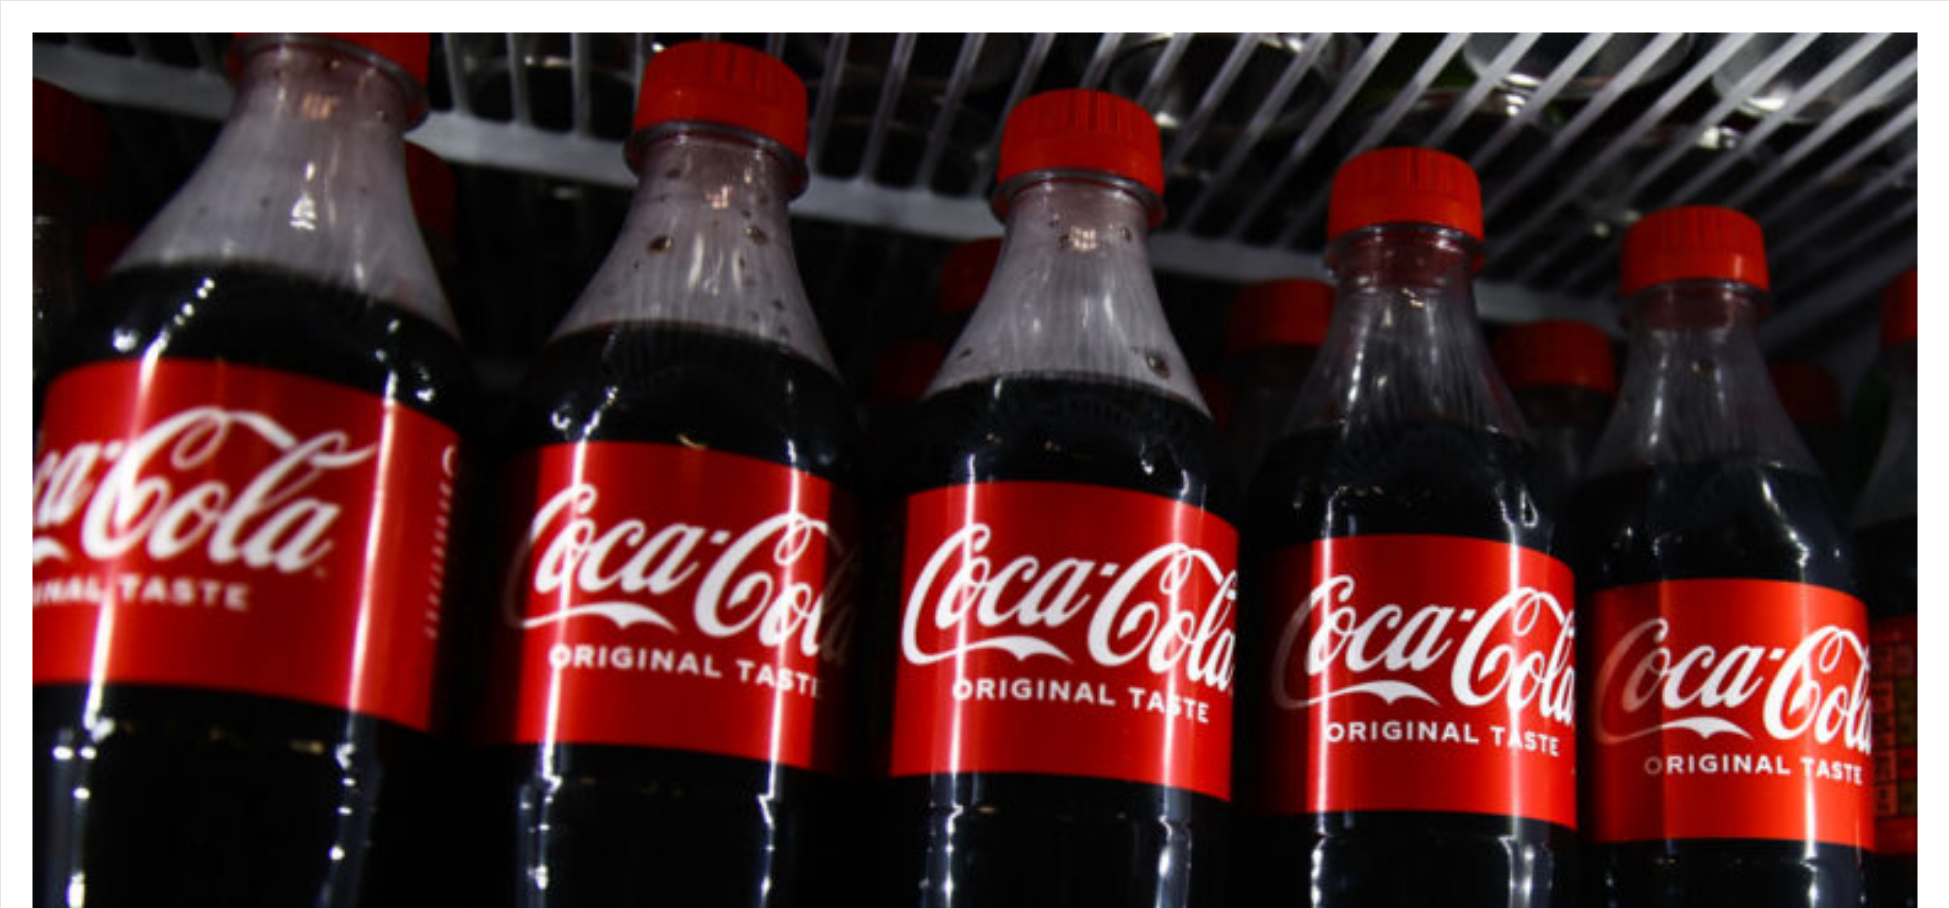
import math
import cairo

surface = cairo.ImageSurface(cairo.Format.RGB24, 1949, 908)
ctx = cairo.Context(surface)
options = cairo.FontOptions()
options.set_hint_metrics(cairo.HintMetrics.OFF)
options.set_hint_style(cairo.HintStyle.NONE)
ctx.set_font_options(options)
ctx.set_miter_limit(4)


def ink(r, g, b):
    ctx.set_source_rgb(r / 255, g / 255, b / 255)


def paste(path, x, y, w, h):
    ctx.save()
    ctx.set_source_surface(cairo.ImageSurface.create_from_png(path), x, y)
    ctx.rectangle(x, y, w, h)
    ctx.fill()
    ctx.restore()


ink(255, 255, 255)
ctx.paint()
ctx.rectangle(0.5, 0.5, 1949, 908)
ink(229, 229, 229)
ctx.set_line_width(1)
ctx.stroke()
paste("pic1.png", 32, 32, 1886, 876)
surface.write_to_png("screenshot.png")
